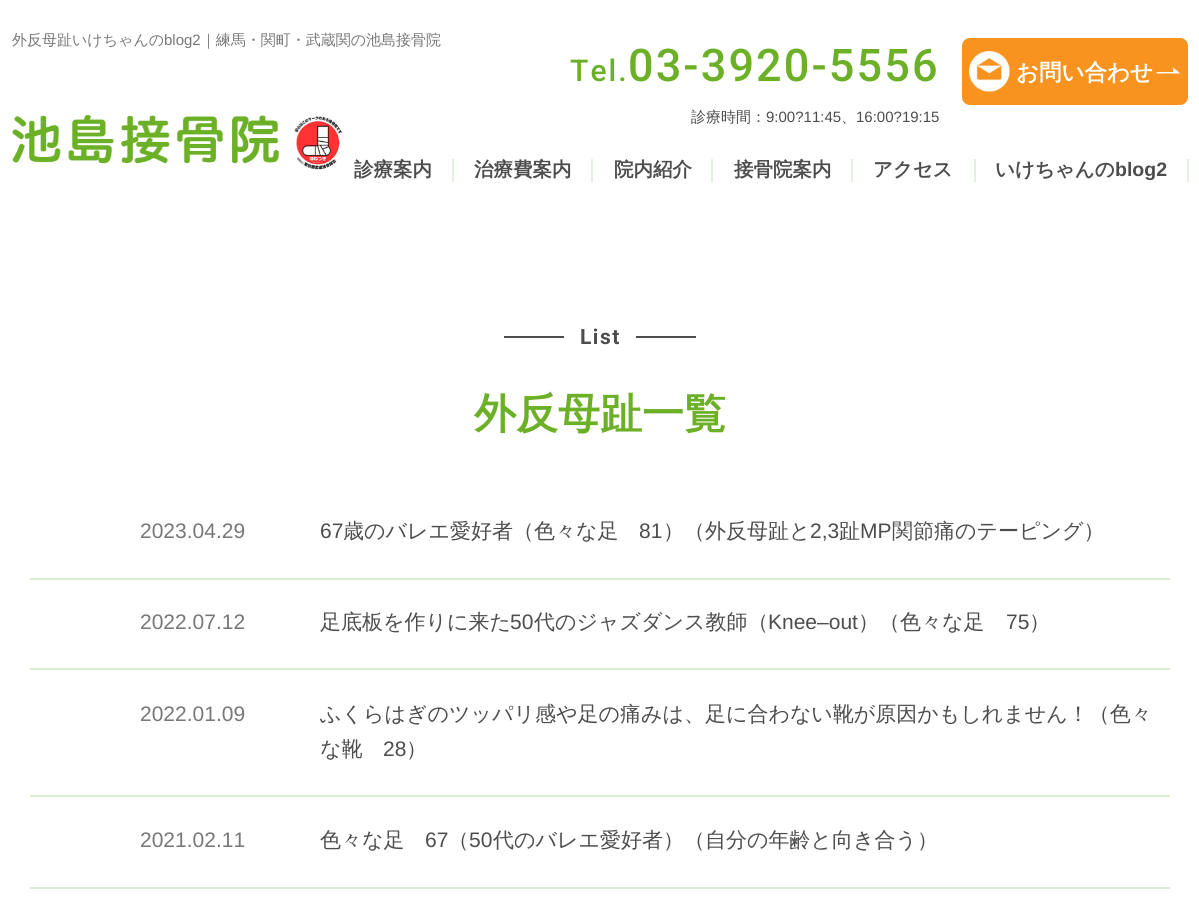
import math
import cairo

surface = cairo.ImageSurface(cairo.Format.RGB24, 1199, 904)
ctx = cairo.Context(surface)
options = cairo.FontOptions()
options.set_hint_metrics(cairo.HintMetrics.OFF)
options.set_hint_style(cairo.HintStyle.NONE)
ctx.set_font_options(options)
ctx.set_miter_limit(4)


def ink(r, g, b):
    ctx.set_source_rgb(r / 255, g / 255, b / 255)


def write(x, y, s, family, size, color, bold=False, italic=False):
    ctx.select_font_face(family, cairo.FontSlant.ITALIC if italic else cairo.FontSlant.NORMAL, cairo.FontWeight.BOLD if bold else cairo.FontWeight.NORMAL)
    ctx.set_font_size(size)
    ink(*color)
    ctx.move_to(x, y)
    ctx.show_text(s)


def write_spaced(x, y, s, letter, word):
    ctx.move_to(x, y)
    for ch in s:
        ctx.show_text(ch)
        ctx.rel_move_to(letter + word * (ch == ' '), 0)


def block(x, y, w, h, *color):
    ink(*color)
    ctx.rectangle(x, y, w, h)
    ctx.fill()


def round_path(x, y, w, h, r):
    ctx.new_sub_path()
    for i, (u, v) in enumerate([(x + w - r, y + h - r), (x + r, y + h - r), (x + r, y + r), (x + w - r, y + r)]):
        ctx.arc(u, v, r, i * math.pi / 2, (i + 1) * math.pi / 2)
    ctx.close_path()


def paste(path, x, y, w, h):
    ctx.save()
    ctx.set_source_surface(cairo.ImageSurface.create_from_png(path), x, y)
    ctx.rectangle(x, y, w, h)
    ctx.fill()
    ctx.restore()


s1 = dict(family="WenQuanYi Zen Hei Medium", size=15, color=(120, 120, 120))
s2 = dict(family="Liberation Sans", size=15, color=(120, 120, 120))
s3 = dict(family="WenQuanYi Zen Hei Medium", size=15, color=(77, 77, 77))
s4 = dict(family="Liberation Sans", size=15, color=(77, 77, 77))
s5 = dict(family="WenQuanYi Zen Hei", size=22.5, color=(255, 255, 255), bold=True)
s6 = dict(family="WenQuanYi Zen Hei", size=19.5, color=(77, 77, 77), bold=True)
s7 = dict(family="Liberation Sans", size=19.5, color=(77, 77, 77), bold=True)
s8 = dict(family="WenQuanYi Zen Hei", size=42, color=(107, 176, 39), bold=True)
s9 = dict(family="Liberation Sans", size=21, color=(120, 120, 120))
s10 = dict(family="Liberation Sans", size=21, color=(77, 77, 77))
s11 = dict(family="WenQuanYi Zen Hei Medium", size=21, color=(77, 77, 77))

ink(255, 255, 255)
ctx.paint()
write(12, 45, "外反母趾いけちゃんの", **s1)
write(164, 45, "blog2", **s2)
write(201, 45, "｜練馬・関町・武蔵関の池島接骨院", **s1)
ctx.select_font_face("Roboto Medium")
ctx.set_font_size(30)
ink(107, 176, 39)
write_spaced(570, 81, "Tel.", 2.1, 0)
ctx.set_font_size(45)
write_spaced(628, 81, "03-3920-5556", 2.1, 0)
write(691, 122, "診療時間：", **s3)
write(766, 122, "9:00?11:45", **s4)
write(841, 122, "、", **s3)
write(856, 122, "16:00?19:15", **s4)
ink(247, 147, 30)
round_path(962, 38, 226, 67, 8)
ctx.fill()
paste("pic1.png", 969, 51, 212, 41)
write(1016, 80, "お問い合わせ", **s5)
paste("pic2.png", 12, 115, 330, 55)
write(354, 176, "診療案内", **s6)
block(452, 159, 2, 23, 228, 240, 225)
write(474, 176, "治療費案内", **s6)
block(591, 159, 2, 23, 228, 240, 225)
write(614, 176, "院内紹介", **s6)
block(711, 159, 2, 23, 228, 240, 225)
write(734, 176, "接骨院案内", **s6)
block(851, 159, 2, 23, 228, 240, 225)
write(873, 176, "アクセス", **s6)
block(974, 159, 2, 23, 228, 240, 225)
write(995, 176, "いけちゃんの", **s6)
write(1115, 176, "blog2", **s7)
block(1187, 159, 2, 23, 228, 240, 225)
block(504, 336, 60, 2, 77, 77, 77)
ctx.select_font_face("Roboto", cairo.FontSlant.NORMAL, cairo.FontWeight.BOLD)
ctx.set_font_size(21)
write_spaced(580, 344, "List", 1.5, 0)
block(636, 336, 60, 2, 77, 77, 77)
write(474, 428, "外反母趾一覧", **s8)
block(30, 578, 1140, 2, 217, 240, 211)
write(140, 538, "2023.04.29", **s9)
write(320, 538, "67", **s10)
write(343, 538, "歳のバレエ愛好者（色々な足", **s11)
write(639, 538, "81", **s10)
write(663, 538, "）（外反母趾と", **s11)
write(810, 538, "2,3", **s10)
write(839, 538, "趾", **s11)
write(860, 538, "MP", **s10)
write(892, 538, "関節痛のテーピング）", **s11)
block(30, 668, 1140, 2, 217, 240, 211)
write(140, 629, "2022.07.12", **s9)
write(320, 629, "足底板を作りに来た", **s11)
write(510, 629, "50", **s10)
write(534, 629, "代のジャズダンス教師（", **s11)
write(768, 629, "Knee–out", **s10)
write(858, 629, "）（色々な足", **s11)
write(1006, 629, "75", **s10)
write(1029, 629, "）", **s11)
block(30, 795, 1140, 2, 217, 240, 211)
write(140, 721, "2022.01.09", **s9)
write(320, 721, "ふくらはぎのツッパリ感や足の痛みは、足に合わない靴が原因かもしれません！（色々", **s11)
write(320, 756, "な靴", **s11)
write(383, 756, "28", **s10)
write(406, 756, "）", **s11)
block(30, 887, 1140, 2, 217, 240, 211)
write(140, 847, "2021.02.11", **s9)
write(320, 847, "色々な足", **s11)
write(425, 847, "67", **s10)
write(448, 847, "（", **s11)
write(469, 847, "50", **s10)
write(493, 847, "代のバレエ愛好者）（自分の年齢と向き合う）", **s11)
surface.write_to_png("screenshot.png")
